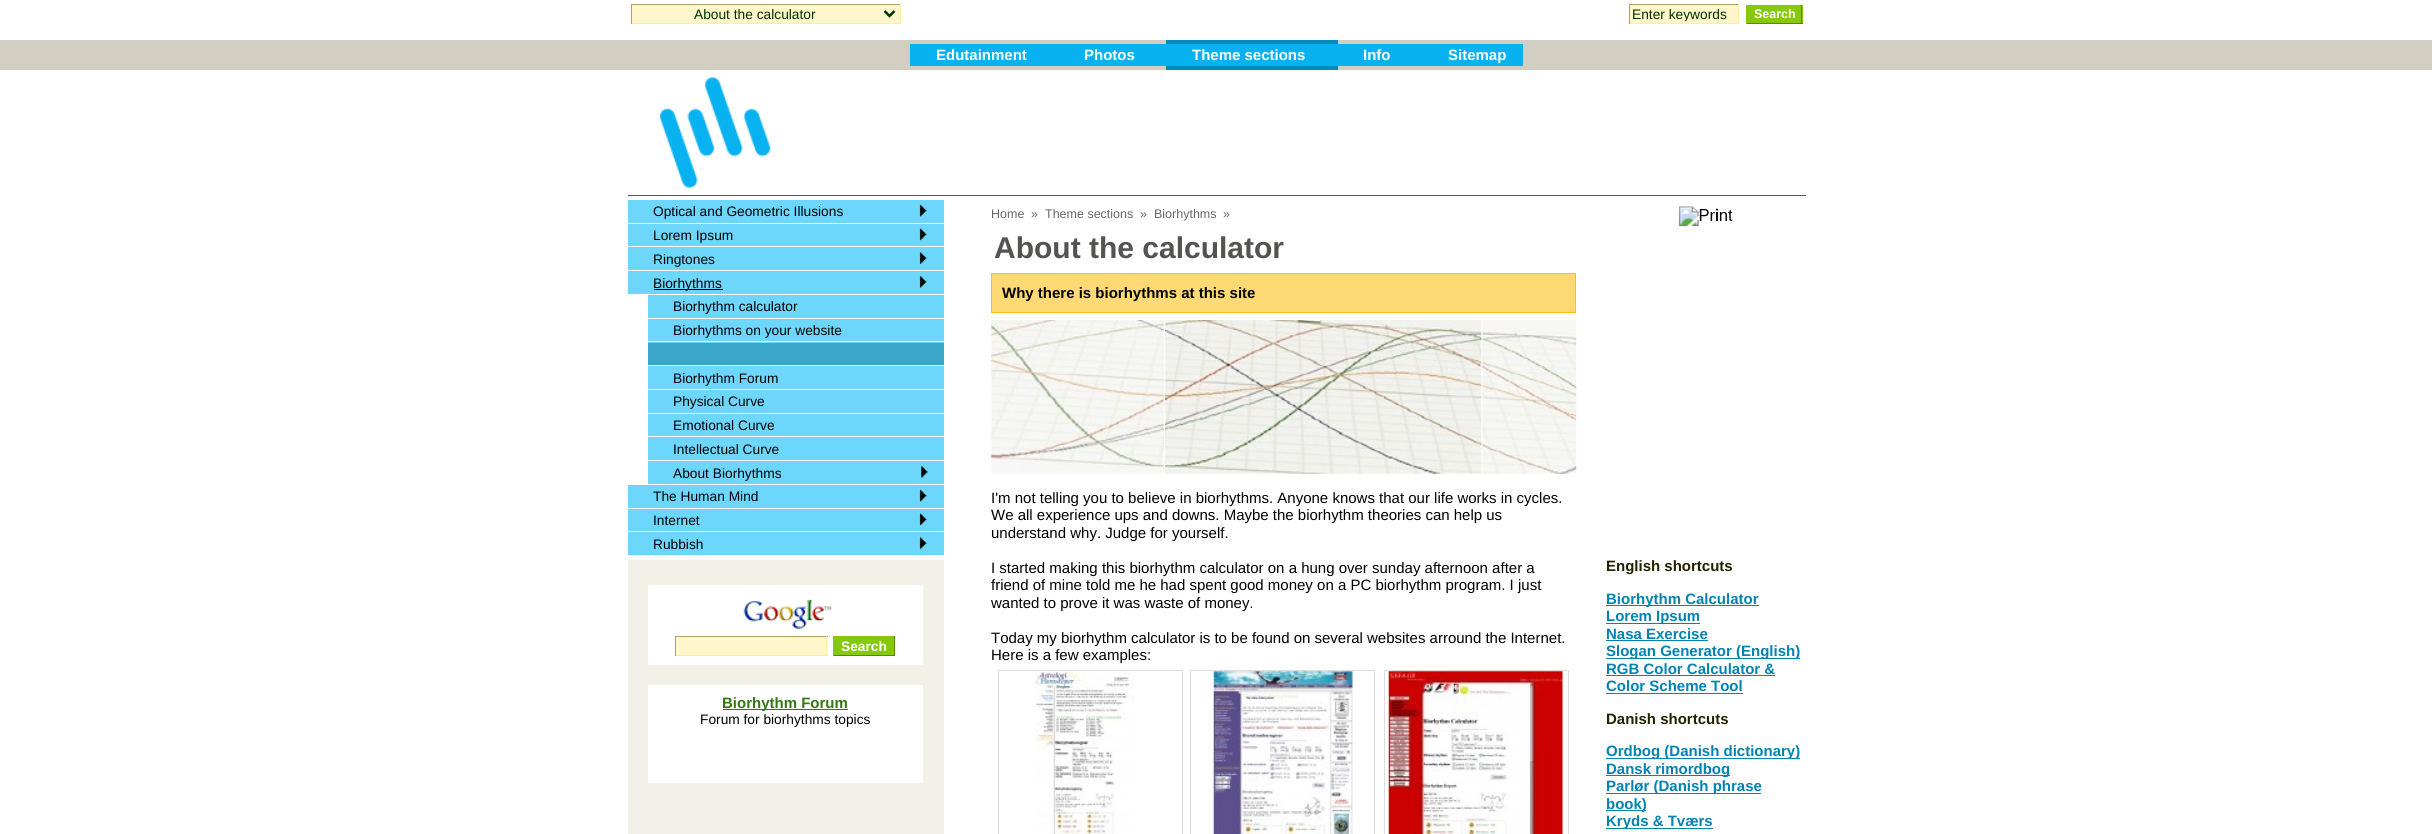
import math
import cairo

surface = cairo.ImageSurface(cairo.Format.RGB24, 2432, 834)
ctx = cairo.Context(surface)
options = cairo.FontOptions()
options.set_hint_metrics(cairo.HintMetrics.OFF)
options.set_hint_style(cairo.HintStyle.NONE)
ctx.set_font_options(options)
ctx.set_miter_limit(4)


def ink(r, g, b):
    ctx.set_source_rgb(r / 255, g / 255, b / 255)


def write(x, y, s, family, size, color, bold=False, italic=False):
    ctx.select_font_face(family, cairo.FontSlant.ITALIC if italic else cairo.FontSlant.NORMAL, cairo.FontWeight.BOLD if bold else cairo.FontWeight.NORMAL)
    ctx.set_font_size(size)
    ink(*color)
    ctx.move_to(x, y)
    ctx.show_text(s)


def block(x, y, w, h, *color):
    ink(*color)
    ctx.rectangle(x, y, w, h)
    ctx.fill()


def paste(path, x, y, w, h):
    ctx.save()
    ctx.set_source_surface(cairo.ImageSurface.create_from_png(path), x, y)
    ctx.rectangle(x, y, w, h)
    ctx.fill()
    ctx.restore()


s1 = dict(family="Liberation Sans", size=13.75, color=(0, 51, 0))
s2 = dict(family="Liberation Sans", size=12.5, color=(255, 255, 255), bold=True)
s3 = dict(family="Liberation Sans", size=15, color=(255, 255, 255), bold=True)
s4 = dict(family="Liberation Sans", size=13.75, color=(0, 0, 0))
s5 = dict(family="Liberation Sans", size=13.75, color=(255, 255, 255), bold=True)
s6 = dict(family="Liberation Sans", size=15, color=(51, 119, 17), bold=True)
s7 = dict(family="Liberation Sans", size=12.5, color=(102, 102, 102))
s8 = dict(family="Liberation Sans", size=30, color=(82, 84, 81), bold=True)
s9 = dict(family="Liberation Sans", size=15, color=(0, 0, 0), bold=True)
s10 = dict(family="Liberation Sans", size=15, color=(0, 0, 0))
s11 = dict(family="Liberation Sans", size=17, color=(0, 0, 0))
s12 = dict(family="Liberation Sans", size=15, color=(34, 34, 0), bold=True)
s13 = dict(family="Liberation Sans", size=15, color=(0, 131, 179), bold=True)

ink(255, 255, 255)
ctx.paint()
block(632, 5, 268, 18, 255, 246, 203)
block(631, 4, 270, 1, 170, 159, 109)
block(900, 4, 1, 20, 255, 239, 163)
block(631, 23, 270, 1, 255, 239, 163)
block(631, 4, 1, 20, 170, 159, 109)
ctx.new_path()
ctx.move_to(884.5, 11)
ctx.line_to(889.5, 16)
ctx.line_to(894.5, 11)
ink(0, 51, 0)
ctx.set_line_width(2.5)
ctx.stroke()
write(694, 19, "About the calculator", **s1)
block(1630, 5, 108, 18, 255, 246, 203)
block(1629, 4, 110, 1, 170, 159, 109)
block(1738, 4, 1, 20, 255, 239, 163)
block(1629, 23, 110, 1, 255, 239, 163)
block(1629, 4, 1, 20, 170, 159, 109)
ctx.save()
ctx.rectangle(1633, 6, 102, 15)
ctx.clip()
write(1632, 19, "Enter keywords", **s1)
ctx.restore()
block(1747, 5, 56, 18, 134, 200, 10)
block(1801, 5, 1, 19, 89, 133, 7)
block(1746, 23, 57, 1, 89, 133, 7)
block(1746, 5, 1, 19, 134, 200, 10)
write(1754, 18, "Search", **s2)
block(0, 40, 2432, 30, 211, 206, 194)
block(910, 44, 613, 22, 8, 178, 240)
write(936, 60, "Edutainment", **s3)
write(1084, 60, "Photos", **s3)
block(1166, 40, 172, 4, 0, 139, 191)
block(1166, 66, 172, 4, 0, 139, 191)
write(1192, 60, "Theme sections", **s3)
write(1363, 60, "Info", **s3)
write(1448, 60, "Sitemap", **s3)
block(628, 195, 1178, 1, 82, 84, 81)
paste("pic1.png", 659, 77, 112, 111)
block(628, 560, 316, 274, 243, 240, 232)
block(628, 200, 316, 23, 109, 214, 251)
write(653, 216, "Optical and Geometric Illusions", **s4)
paste("pic2.png", 919, 204, 8, 13)
block(628, 224, 316, 46, 109, 214, 251)
block(628, 246, 316, 1, 255, 255, 255)
write(653, 240, "Lorem Ipsum", **s4)
paste("pic3.png", 919, 228, 8, 13)
write(653, 264, "Ringtones", **s4)
paste("pic4.png", 919, 252, 8, 12)
block(628, 271, 316, 23, 109, 214, 251)
block(654, 289, 69, 1, 0, 0, 0)
write(653, 288, "Biorhythms", **s4)
paste("pic5.png", 919, 276, 8, 12)
block(648, 295, 296, 23, 109, 214, 251)
write(673, 311, "Biorhythm calculator", **s4)
block(648, 319, 296, 24, 109, 214, 251)
block(648, 341, 296, 1, 255, 255, 255)
write(673, 335, "Biorhythms on your website", **s4)
block(648, 343, 296, 22, 58, 166, 200)
block(648, 366, 296, 23, 109, 214, 251)
write(673, 383, "Biorhythm Forum", **s4)
block(648, 390, 296, 23, 109, 214, 251)
write(673, 406, "Physical Curve", **s4)
block(648, 414, 296, 46, 109, 214, 251)
block(648, 436, 296, 1, 255, 255, 255)
write(673, 430, "Emotional Curve", **s4)
write(673, 454, "Intellectual Curve", **s4)
block(648, 461, 296, 23, 109, 214, 251)
write(673, 478, "About Biorhythms", **s4)
paste("pic6.png", 921, 466, 7, 12)
block(628, 485, 316, 23, 109, 214, 251)
write(653, 501, "The Human Mind", **s4)
paste("pic2.png", 919, 489, 8, 13)
block(628, 509, 316, 46, 109, 214, 251)
block(628, 531, 316, 1, 255, 255, 255)
write(653, 525, "Internet", **s4)
paste("pic3.png", 919, 513, 8, 13)
write(653, 549, "Rubbish", **s4)
paste("pic4.png", 919, 537, 8, 12)
block(648, 585, 275, 80, 255, 255, 255)
paste("pic7.png", 743, 599, 89, 30)
block(676, 637, 152, 18, 255, 246, 203)
block(675, 636, 153, 1, 170, 159, 109)
block(826, 636, 1, 20, 255, 239, 163)
block(675, 655, 153, 1, 255, 239, 163)
block(675, 636, 1, 20, 170, 159, 109)
block(834, 636, 60, 19, 134, 200, 10)
block(894, 636, 1, 20, 89, 133, 7)
block(833, 655, 62, 1, 89, 133, 7)
block(833, 636, 1, 20, 134, 200, 10)
write(841, 651, "Search", **s5)
block(648, 685, 275, 98, 255, 255, 255)
block(723, 709, 125, 1, 51, 119, 17)
write(722, 708, "Biorhythm Forum", **s6)
write(700, 724, "Forum for biorhythms topics", **s4)
write(991, 218, "Home", **s7)
write(1031, 218, "»", **s7)
write(1045, 218, "Theme sections", **s7)
write(1140, 218, "»", **s7)
write(1154, 218, "Biorhythms", **s7)
write(1223, 218, "»", **s7)
write(994, 258, "About the calculator", **s8)
ink(255, 217, 115)
ctx.rectangle(991.5, 273.5, 584, 39)
ctx.fill_preserve()
ink(255, 191, 19)
ctx.set_line_width(1)
ctx.stroke()
write(1002, 298, "Why there is biorhythms at this site", **s9)
paste("pic8.png", 991, 320, 586, 154)
write(991, 503, "I'm not telling you to believe in biorhythms. Anyone knows that our life works in cycles.", **s10)
write(991, 520, "We all experience ups and downs. Maybe the biorhythm theories can help us", **s10)
write(991, 538, "understand why. Judge for yourself.", **s10)
write(991, 573, "I started making this biorhythm calculator on a hung over sunday afternoon after a", **s10)
write(991, 590, "friend of mine told me he had spent good money on a PC biorhythm program. I just", **s10)
write(991, 608, "wanted to prove it was waste of money.", **s10)
write(991, 643, "Today my biorhythm calculator is to be found on several websites arround the Internet.", **s10)
write(991, 660, "Here is a few examples:", **s10)
ctx.rectangle(998.5, 670.5, 184, 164)
ink(221, 221, 221)
ctx.stroke()
paste("pic9.png", 1035, 671, 100, 163)
ctx.rectangle(1190.5, 670.5, 184, 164)
ctx.stroke()
paste("pic10.png", 1213, 671, 140, 163)
ctx.rectangle(1384.5, 670.5, 184, 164)
ctx.stroke()
paste("pic11.png", 1388, 671, 175, 163)
paste("pic12.png", 1678, 206, 55, 21)
write(1715, 221, "i", **s11)
write(1606, 571, "English shortcuts", **s12)
block(1606, 605, 153, 1, 0, 131, 179)
write(1606, 604, "Biorhythm Calculator", **s13)
block(1606, 623, 94, 1, 0, 131, 179)
write(1606, 621, "Lorem Ipsum", **s13)
write(1606, 639, "Nasa Exercise", **s13)
block(1606, 640, 102, 1, 0, 131, 179)
block(1606, 658, 194, 1, 0, 131, 179)
write(1606, 656, "Slogan Generator (English)", **s13)
write(1606, 674, "RGB Color Calculator &", **s13)
block(1606, 675, 169, 1, 0, 131, 179)
write(1606, 691, "Color Scheme Tool", **s13)
block(1606, 693, 137, 1, 0, 131, 179)
write(1606, 724, "Danish shortcuts", **s12)
block(1606, 758, 194, 1, 0, 131, 179)
write(1606, 756, "Ordbog (Danish dictionary)", **s13)
block(1606, 775, 124, 1, 0, 131, 179)
write(1606, 774, "Dansk rimordbog", **s13)
block(1606, 793, 155, 1, 0, 131, 179)
write(1606, 791, "Parlør (Danish phrase", **s13)
block(1606, 810, 40, 1, 0, 131, 179)
write(1606, 809, "book)", **s13)
block(1606, 828, 107, 1, 0, 131, 179)
write(1606, 826, "Kryds & Tværs", **s13)
surface.write_to_png("screenshot.png")
